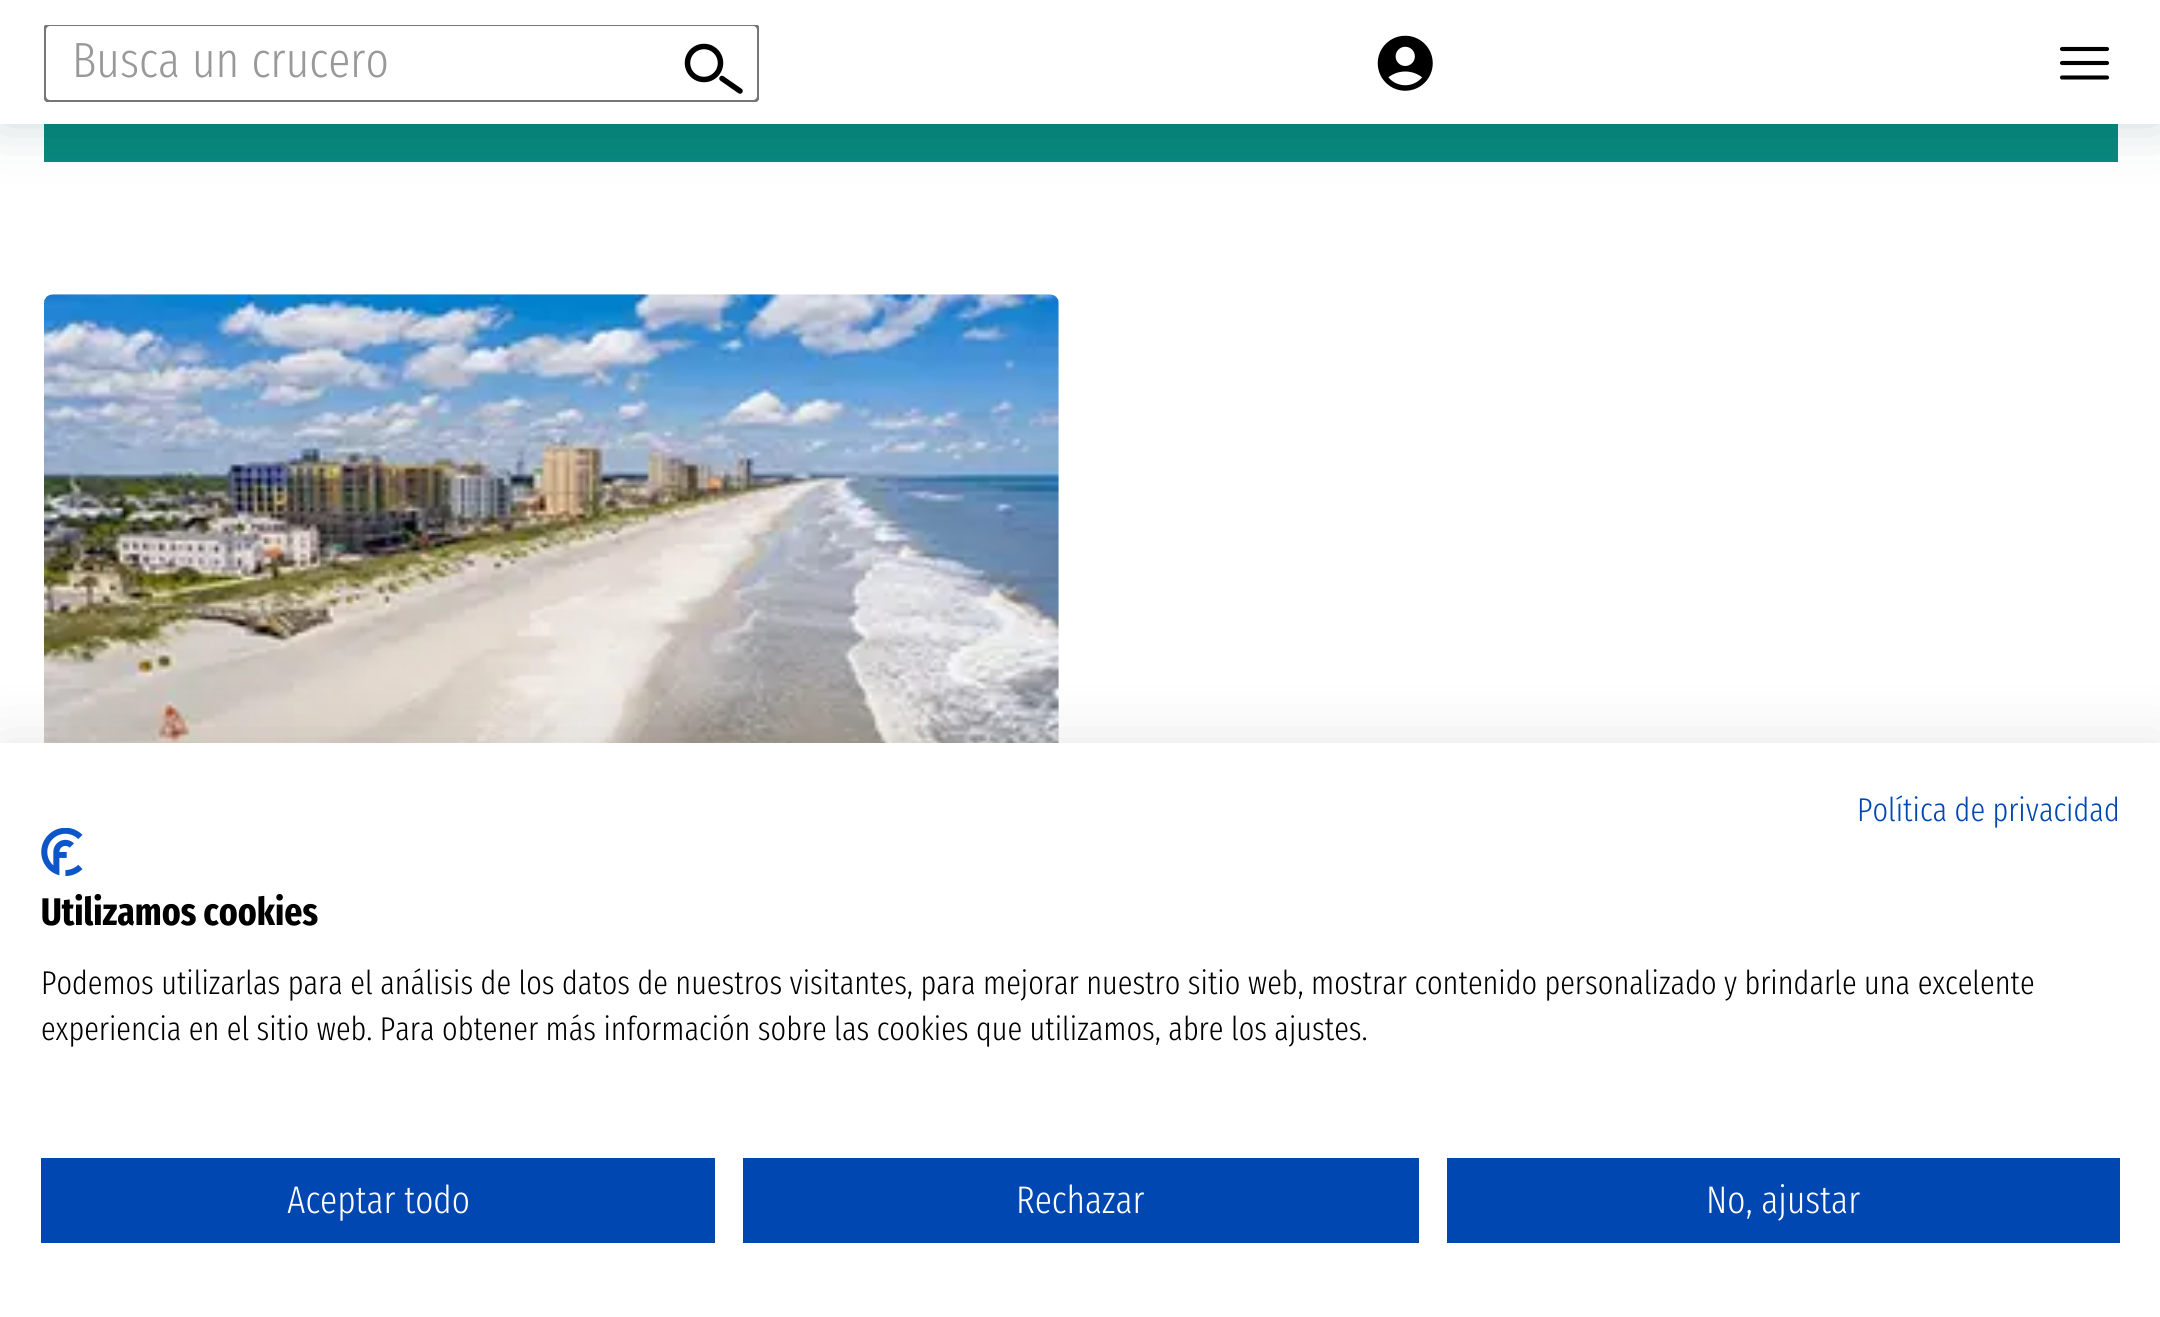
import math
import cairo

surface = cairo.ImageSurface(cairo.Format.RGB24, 2160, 1317)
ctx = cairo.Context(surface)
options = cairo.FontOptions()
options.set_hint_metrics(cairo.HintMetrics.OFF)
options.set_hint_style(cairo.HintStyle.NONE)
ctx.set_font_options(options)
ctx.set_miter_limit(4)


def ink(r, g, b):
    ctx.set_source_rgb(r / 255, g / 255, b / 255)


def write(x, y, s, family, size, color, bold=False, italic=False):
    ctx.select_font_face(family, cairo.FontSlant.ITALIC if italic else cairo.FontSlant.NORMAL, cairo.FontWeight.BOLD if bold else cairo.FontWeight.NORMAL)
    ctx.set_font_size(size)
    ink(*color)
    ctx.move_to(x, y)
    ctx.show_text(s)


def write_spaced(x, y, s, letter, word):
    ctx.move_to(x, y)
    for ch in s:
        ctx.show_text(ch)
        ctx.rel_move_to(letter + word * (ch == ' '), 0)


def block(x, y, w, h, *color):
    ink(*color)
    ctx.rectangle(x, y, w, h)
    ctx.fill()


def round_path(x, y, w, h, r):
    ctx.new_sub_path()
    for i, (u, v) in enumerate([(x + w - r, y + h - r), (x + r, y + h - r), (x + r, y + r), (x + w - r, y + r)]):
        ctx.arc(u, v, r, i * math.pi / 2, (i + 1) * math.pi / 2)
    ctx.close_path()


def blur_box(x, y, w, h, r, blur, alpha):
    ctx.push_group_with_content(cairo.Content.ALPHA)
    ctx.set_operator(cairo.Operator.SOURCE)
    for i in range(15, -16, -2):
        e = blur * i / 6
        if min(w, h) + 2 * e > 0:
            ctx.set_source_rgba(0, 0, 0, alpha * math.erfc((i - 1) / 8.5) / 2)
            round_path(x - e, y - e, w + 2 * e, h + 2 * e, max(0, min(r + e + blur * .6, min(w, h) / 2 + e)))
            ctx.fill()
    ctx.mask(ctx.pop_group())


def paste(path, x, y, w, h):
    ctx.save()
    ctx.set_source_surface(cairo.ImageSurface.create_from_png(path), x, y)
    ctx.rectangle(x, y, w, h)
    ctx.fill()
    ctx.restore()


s1 = dict(family="Fira Sans Extra Condensed Light", size=33, color=(0, 71, 178))
s2 = dict(family="Fira Sans Extra Condensed", size=38.5, color=(0, 0, 0), bold=True)
s3 = dict(family="Fira Sans Extra Condensed Light", size=33, color=(0, 0, 0))
s4 = dict(family="Fira Sans Extra Condensed Light", size=38.5, color=(255, 255, 255))

ink(255, 255, 255)
ctx.paint()
block(44, 124, 2074, 38, 8, 136, 126)
ink(0, 60, 60)
blur_box(0, 0, 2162, 124, 0, 27.5, 0.2)
block(0, 0, 2160, 124, 255, 255, 255)
ctx.save()
ctx.rectangle(44, 25, 715, 77)
ctx.clip()
round_path(44.5, 24.5, 714, 77, 5.5)
ink(119, 119, 119)
ctx.set_line_width(3)
ctx.stroke()
ctx.restore()
ctx.arc(704, 63, 16.5, 0, 2 * math.pi)
ink(0, 0, 0)
ctx.set_line_width(5.5)
ctx.stroke()
ctx.new_path()
ctx.move_to(722, 78.5)
ctx.line_to(740, 91)
ctx.set_line_cap(cairo.LineCap.ROUND)
ctx.stroke()
ctx.select_font_face("Fira Sans Extra Condensed Light")
ctx.set_font_size(49.5)
ink(153, 153, 153)
write_spaced(72, 77, "Busca un crucero", 0, 1)
paste("pic1.png", 1377, 35, 56, 56)
ctx.new_path()
ctx.move_to(2062, 49)
ctx.line_to(2107, 49)
ctx.move_to(2062, 63)
ctx.line_to(2107, 63)
ctx.move_to(2062, 77.5)
ctx.line_to(2107, 77.5)
ink(0, 0, 0)
ctx.set_line_width(4.1)
ctx.set_line_join(cairo.LineJoin.ROUND)
ctx.stroke()
paste("pic2.png", 44, 294, 1015, 449)
ink(0, 0, 0)
blur_box(0, 743, 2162, 574, 0, 33, 0.1)
block(0, 743, 2160, 574, 255, 255, 255)
write(1857, 821, "Política de privacidad", **s1)
paste("pic3.png", 41, 828, 42, 49)
write(41, 925, "Utilizamos cookies", **s2)
write(41, 994, "Podemos utilizarlas para el análisis de los datos de nuestros visitantes, para mejorar nuestro sitio web, mostrar contenido personalizado y brindarle una excelente", **s3)
write(41, 1040, "experiencia en el sitio web. Para obtener más información sobre las cookies que utilizamos, abre los ajustes.", **s3)
block(41, 1158, 674, 85, 0, 71, 178)
write(287, 1213, "Aceptar todo", **s4)
block(743, 1158, 676, 85, 0, 71, 178)
write(1016, 1213, "Rechazar", **s4)
block(1447, 1158, 673, 85, 0, 71, 178)
write(1706, 1213, "No, ajustar", **s4)
surface.write_to_png("screenshot.png")
